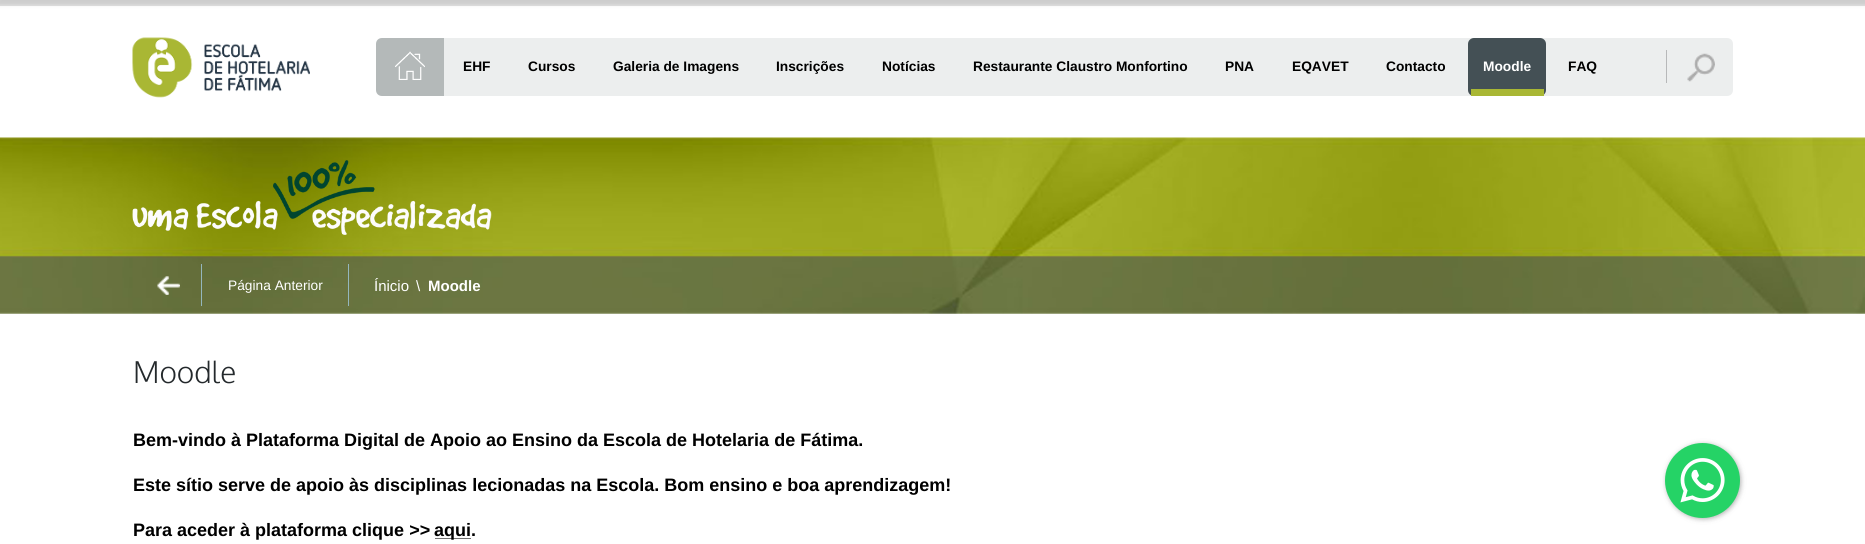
import math
import cairo

surface = cairo.ImageSurface(cairo.Format.RGB24, 1865, 544)
ctx = cairo.Context(surface)
options = cairo.FontOptions()
options.set_hint_metrics(cairo.HintMetrics.OFF)
options.set_hint_style(cairo.HintStyle.NONE)
ctx.set_font_options(options)
ctx.set_miter_limit(4)


def ink(r, g, b):
    ctx.set_source_rgb(r / 255, g / 255, b / 255)


def write(x, y, s, family, size, color, bold=False, italic=False):
    ctx.select_font_face(family, cairo.FontSlant.ITALIC if italic else cairo.FontSlant.NORMAL, cairo.FontWeight.BOLD if bold else cairo.FontWeight.NORMAL)
    ctx.set_font_size(size)
    ink(*color)
    ctx.move_to(x, y)
    ctx.show_text(s)


def block(x, y, w, h, *color):
    ink(*color)
    ctx.rectangle(x, y, w, h)
    ctx.fill()


def round_path(x, y, w, h, r):
    ctx.new_sub_path()
    for i, (u, v) in enumerate([(x + w - r, y + h - r), (x + r, y + h - r), (x + r, y + r), (x + w - r, y + r)]):
        ctx.arc(u, v, r, i * math.pi / 2, (i + 1) * math.pi / 2)
    ctx.close_path()


def blur_box(x, y, w, h, r, blur, alpha):
    ctx.push_group_with_content(cairo.Content.ALPHA)
    ctx.set_operator(cairo.Operator.SOURCE)
    for i in range(15, -16, -2):
        e = blur * i / 6
        if min(w, h) + 2 * e > 0:
            ctx.set_source_rgba(0, 0, 0, alpha * math.erfc((i - 1) / 8.5) / 2)
            round_path(x - e, y - e, w + 2 * e, h + 2 * e, max(0, min(r + e + blur * .6, min(w, h) / 2 + e)))
            ctx.fill()
    ctx.mask(ctx.pop_group())


def paste(path, x, y, w, h):
    ctx.save()
    ctx.set_source_surface(cairo.ImageSurface.create_from_png(path), x, y)
    ctx.rectangle(x, y, w, h)
    ctx.fill()
    ctx.restore()


s1 = dict(family="Liberation Sans", size=13.75, color=(0, 0, 0), bold=True)
s2 = dict(family="Liberation Sans", size=13.75, color=(255, 255, 255), bold=True)
s3 = dict(family="Liberation Sans", size=13.75, color=(255, 255, 255))
s4 = dict(family="Liberation Sans", size=15, color=(255, 255, 255))
s5 = dict(family="Liberation Sans", size=15, color=(255, 255, 255), bold=True)
s6 = dict(family="Oxygen Light", size=30, color=(36, 41, 44))
s7 = dict(family="Liberation Sans", size=18, color=(0, 0, 0), bold=True)

ink(255, 255, 255)
ctx.paint()
block(0, 0, 1865, 6, 227, 227, 227)
ink(0, 0, 0)
blur_box(-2, -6, 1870, 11, 0, 2, 0.1)
paste("pic1.png", 132, 37, 178, 61)
ink(180, 185, 185)
ctx.new_path()
ctx.move_to(382, 38)
ctx.line_to(444, 38)
ctx.line_to(444, 96)
ctx.line_to(382, 96)
ctx.curve_to(378.5, 96, 376, 93.5, 376, 90)
ctx.line_to(376, 44)
ctx.curve_to(376, 40.5, 378.5, 38, 382, 38)
ctx.close_path()
ctx.fill()
paste("pic2.png", 395, 51, 30, 29)
block(444, 38, 1172, 58, 236, 238, 238)
write(463, 71, "EHF", **s1)
write(528, 71, "Cursos", **s1)
write(613, 71, "Galeria de Imagens", **s1)
write(776, 71, "Inscrições", **s1)
write(882, 71, "Notícias", **s1)
write(973, 71, "Restaurante Claustro Monfortino", **s1)
write(1225, 71, "PNA", **s1)
write(1292, 71, "EQAVET", **s1)
write(1386, 71, "Contacto", **s1)
ink(68, 80, 85)
round_path(1468, 38, 78, 58, 6)
ctx.fill()
block(1471, 89, 73, 7, 169, 183, 52)
write(1483, 71, "Moodle", **s2)
write(1568, 71, "FAQ", **s1)
ink(236, 238, 238)
ctx.new_path()
ctx.move_to(1616, 38)
ctx.line_to(1727, 38)
ctx.curve_to(1730.5, 38, 1733, 40.5, 1733, 44)
ctx.line_to(1733, 90)
ctx.curve_to(1733, 93.5, 1730.5, 96, 1727, 96)
ctx.line_to(1616, 96)
ctx.close_path()
ctx.fill()
block(1666, 50, 1, 33, 183, 184, 185)
paste("pic3.png", 1687, 53, 28, 29)
paste("pic4.png", 0, 137, 1865, 177)
paste("pic5.png", 132, 160, 360, 75)
block(348, 264, 1, 42, 148, 183, 189)
block(201, 264, 1, 42, 148, 183, 189)
paste("pic6.png", 157, 276, 23, 19)
write(228, 290, "Página Anterior", **s3)
write(374, 291, "Ínicio", **s4)
write(416, 291, "\\", **s4)
write(428, 291, "Moodle", **s5)
write(133, 383, "Moodle", **s6)
write(133, 446, "Bem-vindo à Plataforma Digital de Apoio ao Ensino da Escola de Hotelaria de Fátima.", **s7)
write(133, 491, "Este sítio serve de apoio às disciplinas lecionadas na Escola. Bom ensino e boa aprendizagem!", **s7)
write(133, 536, "Para aceder à plataforma clique >>", **s7)
block(435, 538, 36, 1, 114, 114, 114)
write(434, 536, "aqui.", **s7)
ink(60, 60, 60)
blur_box(1666, 444, 75, 75, 37.5, 2.5, 0.4)
paste("pic7.png", 1665, 443, 75, 75)
surface.write_to_png("screenshot.png")
